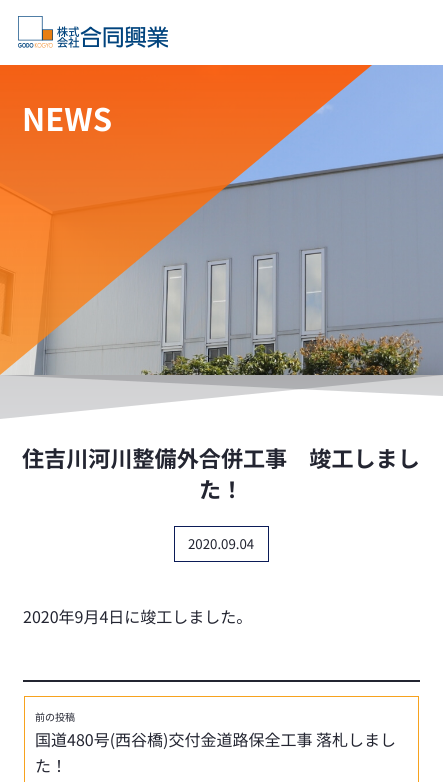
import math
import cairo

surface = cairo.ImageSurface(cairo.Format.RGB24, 443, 782)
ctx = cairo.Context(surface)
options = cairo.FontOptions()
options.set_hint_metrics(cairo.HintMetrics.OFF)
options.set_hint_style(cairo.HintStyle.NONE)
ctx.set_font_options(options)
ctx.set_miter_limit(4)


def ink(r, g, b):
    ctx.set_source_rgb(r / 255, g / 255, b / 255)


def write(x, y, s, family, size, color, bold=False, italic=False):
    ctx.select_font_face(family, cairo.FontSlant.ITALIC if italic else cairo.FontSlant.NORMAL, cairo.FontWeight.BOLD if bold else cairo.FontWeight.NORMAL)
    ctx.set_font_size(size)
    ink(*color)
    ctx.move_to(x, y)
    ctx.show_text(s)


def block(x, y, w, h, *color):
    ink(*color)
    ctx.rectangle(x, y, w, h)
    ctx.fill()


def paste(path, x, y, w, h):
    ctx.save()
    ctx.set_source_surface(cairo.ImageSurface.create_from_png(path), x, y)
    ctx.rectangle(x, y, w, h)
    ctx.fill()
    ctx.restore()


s1 = dict(family="Noto Sans JP", size=31, color=(255, 255, 255), bold=True)
s2 = dict(family="Noto Sans JP", size=22.1, color=(35, 37, 49), bold=True)
s3 = dict(family="Noto Sans JP", size=13.25, color=(35, 37, 49))
s4 = dict(family="Noto Sans JP", size=16, color=(35, 37, 49))
s5 = dict(family="Noto Sans JP", size=10, color=(35, 37, 49))

ink(255, 255, 255)
ctx.paint()
paste("pic1.png", 18, 16, 150, 32)
paste("pic2.png", 0, 65, 443, 310)
write(22, 131, "NEWS", **s1)
gradient = cairo.LinearGradient(222, 396, 222, 375)
gradient.add_color_stop_rgba(0, 0.835, 0.839, 0.847, 1)
gradient.add_color_stop_rgba(1, 0.82, 0.82, 0.824, 1)
ctx.set_source(gradient)
ctx.new_path()
ctx.move_to(443, 396)
ctx.line_to(443, 375)
ctx.line_to(0, 375)
ctx.close_path()
ctx.fill()
gradient = cairo.LinearGradient(222, 419, 222, 375)
gradient.add_color_stop_rgba(0, 0.137, 0.145, 0.192, 0.19)
gradient.add_color_stop_rgba(1, 0.043, 0.047, 0.078, 0.19)
ctx.set_source(gradient)
ctx.new_path()
ctx.move_to(0, 419)
ctx.line_to(0, 375)
ctx.line_to(443, 375)
ctx.close_path()
ctx.fill()
write(22, 467, "住吉川河川整備外合併工事　竣工しまし", **s2)
write(199, 498, "た！", **s2)
ctx.rectangle(174.5, 526.5, 94, 35)
ink(11, 27, 87)
ctx.set_line_width(1)
ctx.stroke()
write(188, 549, "2020.09.04", **s3)
write(23, 623, "2020年9月4日に竣工しました。", **s4)
block(23, 680, 397, 2, 35, 37, 49)
ctx.rectangle(24.5, 696.5, 394, 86)
ink(247, 162, 30)
ctx.stroke()
write(35, 721, "前の投稿", **s5)
write(35, 746, "国道480号(西谷橋)交付金道路保全工事 落札しまし", **s4)
write(35, 772, "た！", **s4)
surface.write_to_png("screenshot.png")
